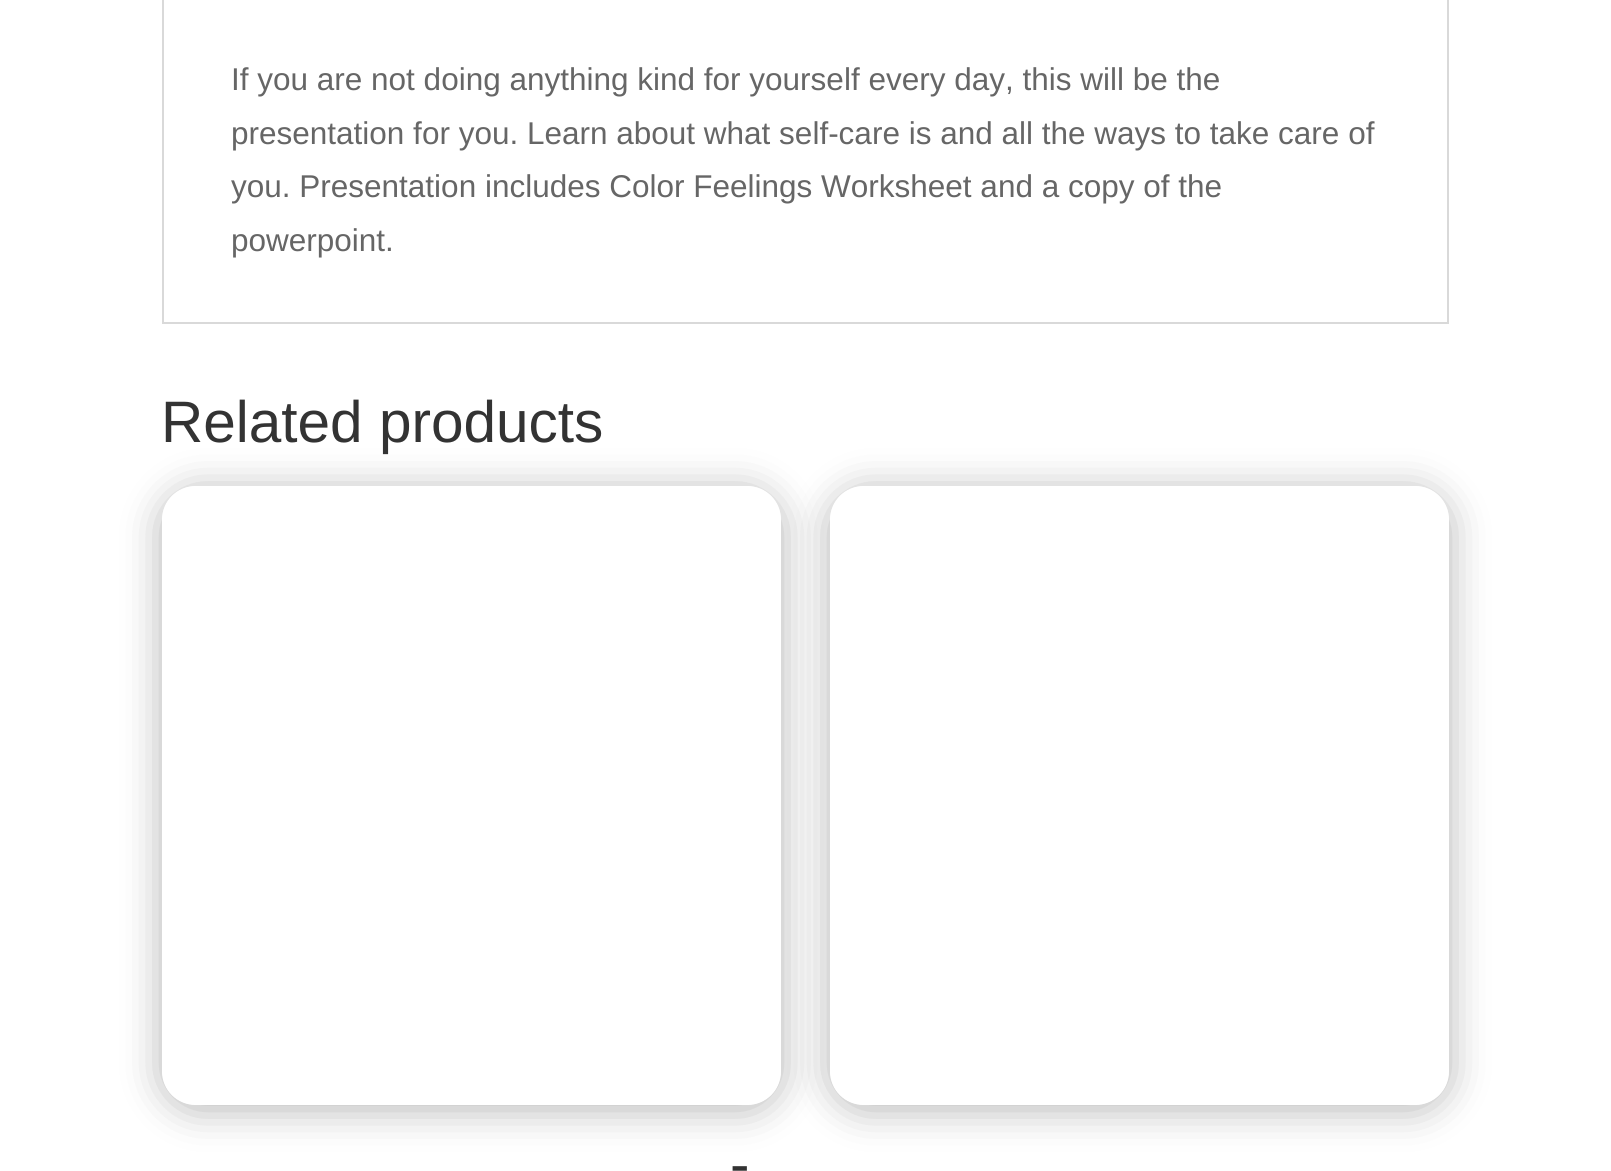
import math
import cairo

surface = cairo.ImageSurface(cairo.Format.RGB24, 1611, 1171)
ctx = cairo.Context(surface)
options = cairo.FontOptions()
options.set_hint_metrics(cairo.HintMetrics.OFF)
options.set_hint_style(cairo.HintStyle.NONE)
ctx.set_font_options(options)
ctx.set_miter_limit(4)


def ink(r, g, b):
    ctx.set_source_rgb(r / 255, g / 255, b / 255)


def write(x, y, s, family, size, color, bold=False, italic=False):
    ctx.select_font_face(family, cairo.FontSlant.ITALIC if italic else cairo.FontSlant.NORMAL, cairo.FontWeight.BOLD if bold else cairo.FontWeight.NORMAL)
    ctx.set_font_size(size)
    ink(*color)
    ctx.move_to(x, y)
    ctx.show_text(s)


def round_path(x, y, w, h, r):
    ctx.new_sub_path()
    for i, (u, v) in enumerate([(x + w - r, y + h - r), (x + r, y + h - r), (x + r, y + r), (x + w - r, y + r)]):
        ctx.arc(u, v, r, i * math.pi / 2, (i + 1) * math.pi / 2)
    ctx.close_path()


def blur_box(x, y, w, h, r, blur, alpha):
    ctx.push_group_with_content(cairo.Content.ALPHA)
    ctx.set_operator(cairo.Operator.SOURCE)
    for i in range(15, -16, -2):
        e = blur * i / 6
        if min(w, h) + 2 * e > 0:
            ctx.set_source_rgba(0, 0, 0, alpha * math.erfc((i - 1) / 8.5) / 2)
            round_path(x - e, y - e, w + 2 * e, h + 2 * e, max(0, min(r + e + blur * .6, min(w, h) / 2 + e)))
            ctx.fill()
    ctx.mask(ctx.pop_group())


s1 = dict(family="Liberation Sans", size=31.5, color=(102, 102, 102))
s2 = dict(family="Liberation Sans", size=58.5, color=(51, 51, 51))

ink(255, 255, 255)
ctx.paint()
ctx.rectangle(163, -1, 1285, 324)
ink(217, 217, 217)
ctx.stroke()
write(231, 90, "If you are not doing anything kind for yourself every day, this will be the", **s1)
write(231, 144, "presentation for you. Learn about what self-care is and all the ways to take care of", **s1)
write(231, 197, "you. Presentation includes Color Feelings Worksheet and a copy of the", **s1)
write(231, 251, "powerpoint.", **s1)
write(161, 442, "Related products", **s2)
ctx.save()
ctx.set_fill_rule(cairo.FillRule.EVEN_ODD)
ctx.new_path()
ctx.move_to(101, 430)
ctx.line_to(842, 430)
ctx.line_to(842, 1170)
ctx.line_to(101, 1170)
ctx.close_path()
ctx.move_to(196, 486)
ctx.line_to(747, 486)
ctx.curve_to(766, 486, 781, 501, 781, 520)
ctx.line_to(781, 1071)
ctx.curve_to(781, 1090, 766, 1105, 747, 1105)
ctx.line_to(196, 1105)
ctx.curve_to(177, 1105, 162, 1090, 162, 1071)
ctx.line_to(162, 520)
ctx.curve_to(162, 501, 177, 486, 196, 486)
ctx.close_path()
ctx.clip()
ink(0, 0, 0)
blur_box(162, 491, 619, 618, 34, 20, 0.3)
ctx.restore()
write(730, 1184, "-", **s2)
ctx.save()
ctx.set_fill_rule(cairo.FillRule.EVEN_ODD)
ctx.new_path()
ctx.move_to(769, 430)
ctx.line_to(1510, 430)
ctx.line_to(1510, 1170)
ctx.line_to(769, 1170)
ctx.close_path()
ctx.move_to(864, 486)
ctx.line_to(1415, 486)
ctx.curve_to(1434, 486, 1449, 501, 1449, 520)
ctx.line_to(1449, 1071)
ctx.curve_to(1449, 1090, 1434, 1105, 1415, 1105)
ctx.line_to(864, 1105)
ctx.curve_to(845, 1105, 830, 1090, 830, 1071)
ctx.line_to(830, 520)
ctx.curve_to(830, 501, 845, 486, 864, 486)
ctx.close_path()
ctx.clip()
ink(0, 0, 0)
blur_box(830, 491, 619, 618, 34, 20, 0.3)
ctx.restore()
surface.write_to_png("screenshot.png")
